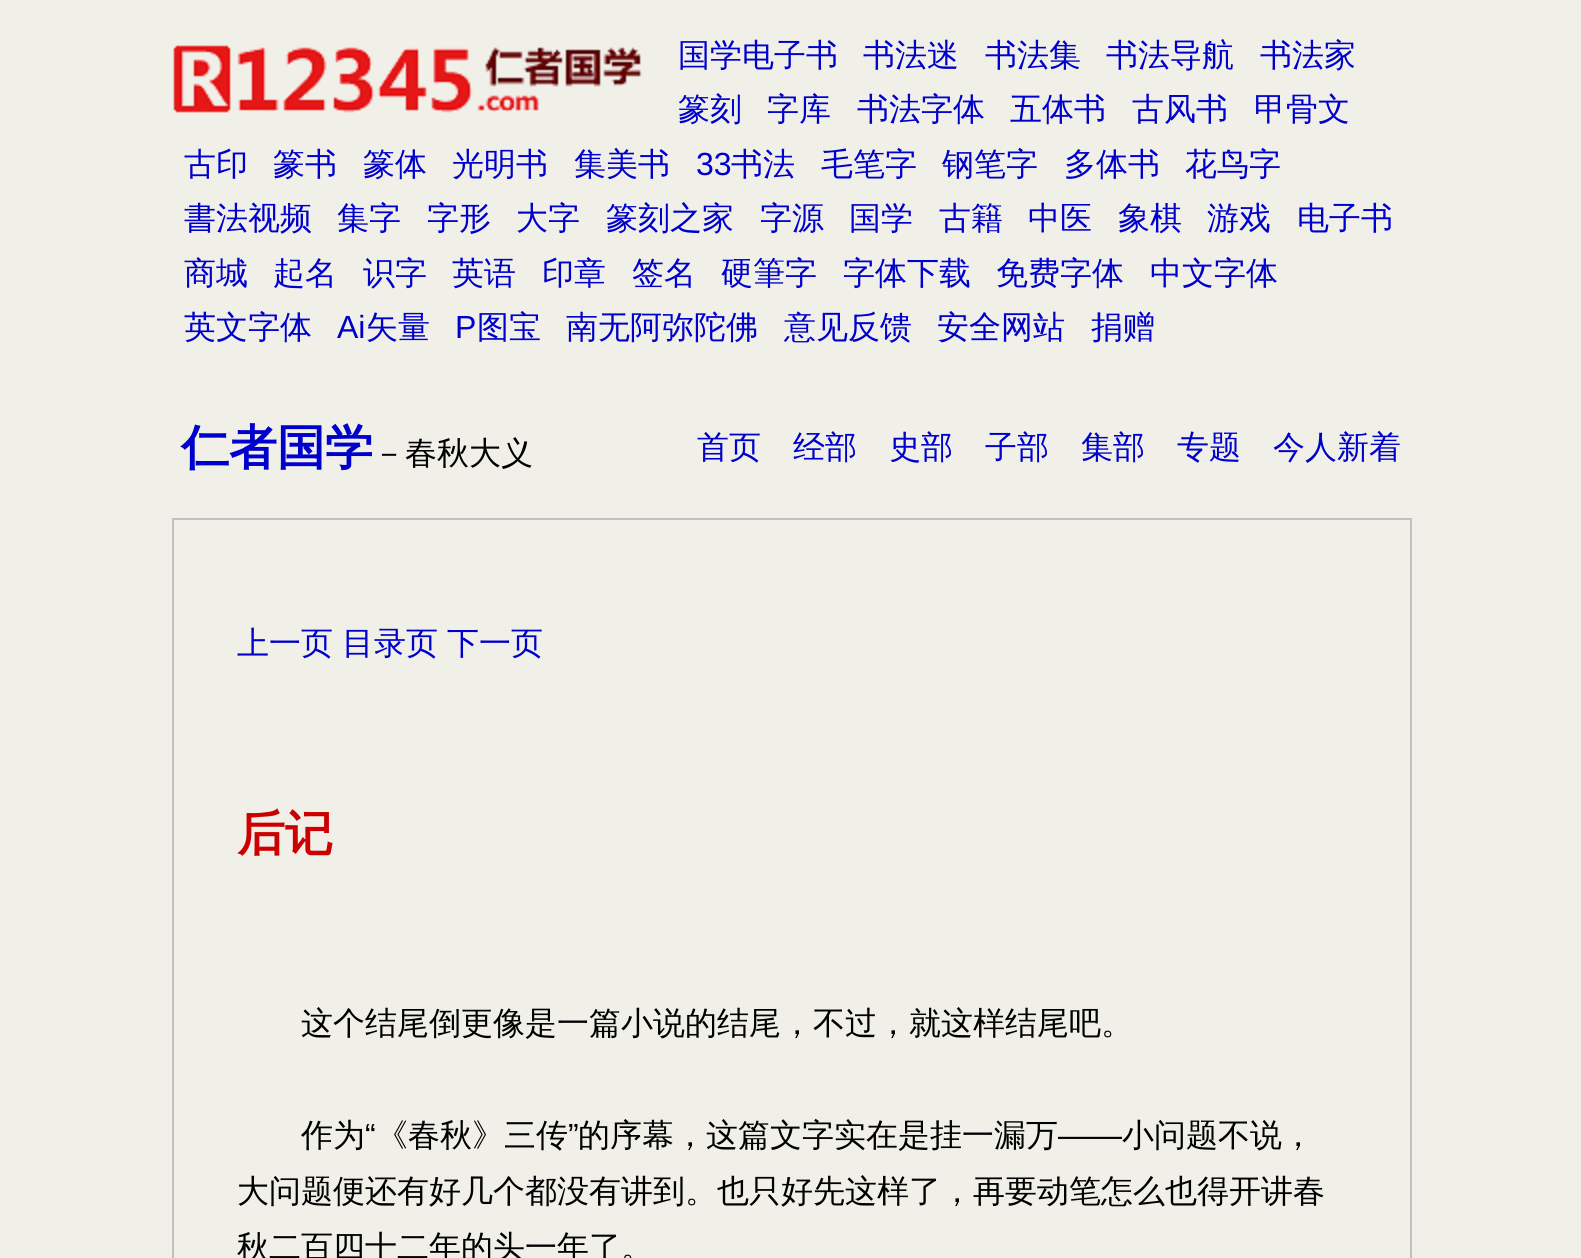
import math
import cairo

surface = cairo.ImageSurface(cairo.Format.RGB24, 1581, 1258)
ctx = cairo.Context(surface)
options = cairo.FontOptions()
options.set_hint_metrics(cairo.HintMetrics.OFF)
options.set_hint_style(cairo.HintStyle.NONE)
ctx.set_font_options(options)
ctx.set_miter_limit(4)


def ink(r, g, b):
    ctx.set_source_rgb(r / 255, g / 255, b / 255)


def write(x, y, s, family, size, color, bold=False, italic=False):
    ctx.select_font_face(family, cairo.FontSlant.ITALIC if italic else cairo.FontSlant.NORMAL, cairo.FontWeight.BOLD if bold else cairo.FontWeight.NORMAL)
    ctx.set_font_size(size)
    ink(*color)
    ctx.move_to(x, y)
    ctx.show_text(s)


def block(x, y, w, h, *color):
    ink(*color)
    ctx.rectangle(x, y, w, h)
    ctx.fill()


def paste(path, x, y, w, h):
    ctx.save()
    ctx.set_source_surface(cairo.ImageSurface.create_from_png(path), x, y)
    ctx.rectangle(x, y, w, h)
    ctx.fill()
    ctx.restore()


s1 = dict(family="WenQuanYi Zen Hei Medium", size=32, color=(0, 0, 204))
s2 = dict(family="Liberation Sans", size=32, color=(0, 0, 204))
s3 = dict(family="WenQuanYi Zen Hei", size=48, color=(0, 0, 204), bold=True)
s4 = dict(family="WenQuanYi Zen Hei Medium", size=32, color=(0, 0, 0))
s5 = dict(family="WenQuanYi Zen Hei", size=48, color=(204, 0, 0), bold=True)
s6 = dict(family="Liberation Sans", size=32, color=(0, 0, 0))

ink(240, 240, 232)
ctx.paint()
write(678, 66, "国学电子书", **s1)
write(863, 66, "书法迷", **s1)
write(985, 66, "书法集", **s1)
write(1106, 66, "书法导航", **s1)
write(1260, 66, "书法家", **s1)
write(678, 120, "篆刻", **s1)
write(767, 120, "字库", **s1)
write(857, 120, "书法字体", **s1)
write(1010, 120, "五体书", **s1)
write(1132, 120, "古风书", **s1)
write(1254, 120, "甲骨文", **s1)
write(184, 175, "古印", **s1)
write(273, 175, "篆书", **s1)
write(363, 175, "篆体", **s1)
write(452, 175, "光明书", **s1)
write(574, 175, "集美书", **s1)
write(696, 175, "33", **s2)
write(731, 175, "书法", **s1)
write(821, 175, "毛笔字", **s1)
write(942, 175, "钢笔字", **s1)
write(1064, 175, "多体书", **s1)
write(1185, 175, "花鸟字", **s1)
write(184, 229, "書法视频", **s1)
write(337, 229, "集字", **s1)
write(427, 229, "字形", **s1)
write(516, 229, "大字", **s1)
write(606, 229, "篆刻之家", **s1)
write(760, 229, "字源", **s1)
write(849, 229, "国学", **s1)
write(939, 229, "古籍", **s1)
write(1028, 229, "中医", **s1)
write(1118, 229, "象棋", **s1)
write(1207, 229, "游戏", **s1)
write(1297, 229, "电子书", **s1)
write(184, 284, "商城", **s1)
write(273, 284, "起名", **s1)
write(363, 284, "识字", **s1)
write(452, 284, "英语", **s1)
write(542, 284, "印章", **s1)
write(632, 284, "签名", **s1)
write(721, 284, "硬筆字", **s1)
write(843, 284, "字体下载", **s1)
write(996, 284, "免费字体", **s1)
write(1150, 284, "中文字体", **s1)
write(184, 338, "英文字体", **s1)
write(337, 338, "Ai", **s2)
write(366, 338, "矢量", **s1)
write(455, 338, "P", **s2)
write(477, 338, "图宝", **s1)
write(566, 338, "南无阿弥陀佛", **s1)
write(784, 338, "意见反馈", **s1)
write(937, 338, "安全网站", **s1)
write(1091, 338, "捐赠", **s1)
paste("pic1.png", 173, 45, 470, 68)
write(181, 464, "仁者国学", **s3)
write(373, 464, "－春秋大义", **s4)
write(697, 458, "首页", **s1)
write(793, 458, "经部", **s1)
write(889, 458, "史部", **s1)
write(985, 458, "子部", **s1)
write(1081, 458, "集部", **s1)
write(1177, 458, "专题", **s1)
write(1273, 458, "今人新着", **s1)
block(172, 518, 1240, 2, 192, 192, 192)
block(1410, 518, 2, 740, 192, 192, 192)
block(172, 518, 2, 740, 192, 192, 192)
write(237, 654, "上一页", **s1)
write(342, 654, "目录页", **s1)
write(447, 654, "下一页", **s1)
write(237, 850, "后记", **s5)
write(301, 1034, "这个结尾倒更像是一篇小说的结尾，不过，就这样结尾吧。", **s4)
write(301, 1146, "作为", **s4)
write(365, 1146, "“", **s6)
write(376, 1146, "《春秋》三传", **s4)
write(568, 1146, "”", **s6)
write(578, 1146, "的序幕，这篇文字实在是挂一漏万", **s4)
write(1058, 1146, "——", **s6)
write(1122, 1146, "小问题不说，", **s4)
write(237, 1202, "大问题便还有好几个都没有讲到。也只好先这样了，再要动笔怎么也得开讲春", **s4)
write(237, 1258, "秋二百四十二年的头一年了。", **s4)
surface.write_to_png("screenshot.png")
